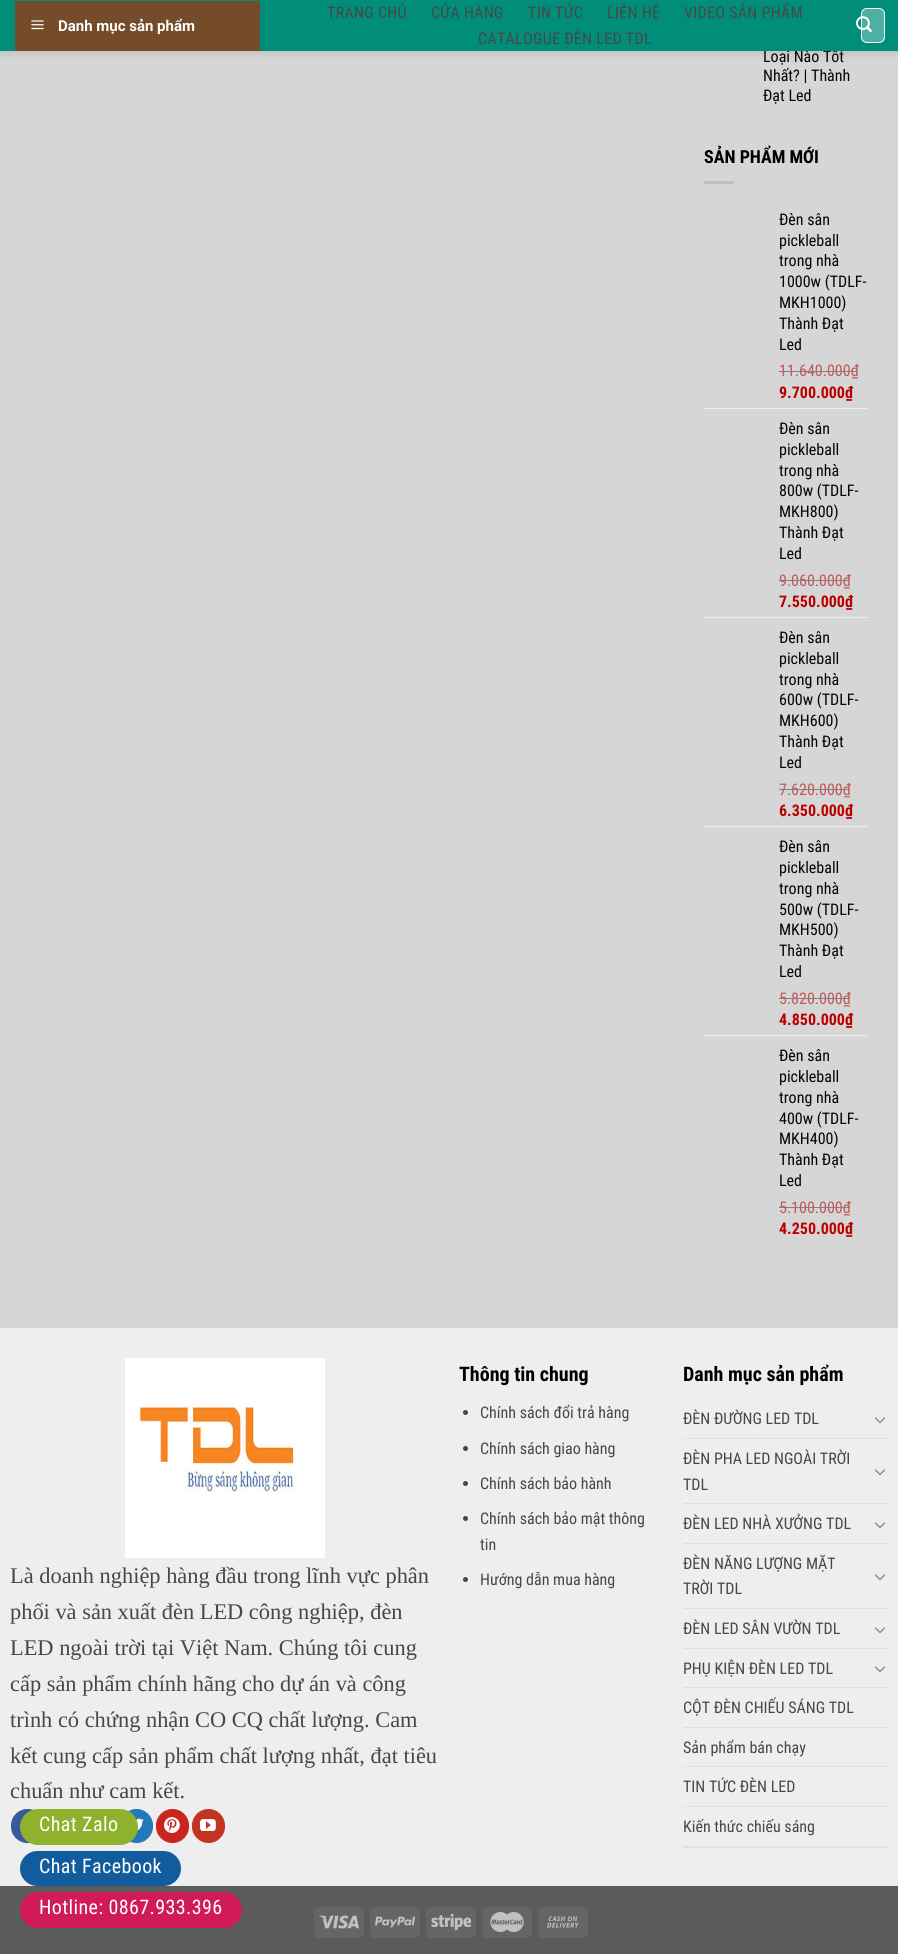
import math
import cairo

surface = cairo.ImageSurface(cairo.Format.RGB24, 898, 1954)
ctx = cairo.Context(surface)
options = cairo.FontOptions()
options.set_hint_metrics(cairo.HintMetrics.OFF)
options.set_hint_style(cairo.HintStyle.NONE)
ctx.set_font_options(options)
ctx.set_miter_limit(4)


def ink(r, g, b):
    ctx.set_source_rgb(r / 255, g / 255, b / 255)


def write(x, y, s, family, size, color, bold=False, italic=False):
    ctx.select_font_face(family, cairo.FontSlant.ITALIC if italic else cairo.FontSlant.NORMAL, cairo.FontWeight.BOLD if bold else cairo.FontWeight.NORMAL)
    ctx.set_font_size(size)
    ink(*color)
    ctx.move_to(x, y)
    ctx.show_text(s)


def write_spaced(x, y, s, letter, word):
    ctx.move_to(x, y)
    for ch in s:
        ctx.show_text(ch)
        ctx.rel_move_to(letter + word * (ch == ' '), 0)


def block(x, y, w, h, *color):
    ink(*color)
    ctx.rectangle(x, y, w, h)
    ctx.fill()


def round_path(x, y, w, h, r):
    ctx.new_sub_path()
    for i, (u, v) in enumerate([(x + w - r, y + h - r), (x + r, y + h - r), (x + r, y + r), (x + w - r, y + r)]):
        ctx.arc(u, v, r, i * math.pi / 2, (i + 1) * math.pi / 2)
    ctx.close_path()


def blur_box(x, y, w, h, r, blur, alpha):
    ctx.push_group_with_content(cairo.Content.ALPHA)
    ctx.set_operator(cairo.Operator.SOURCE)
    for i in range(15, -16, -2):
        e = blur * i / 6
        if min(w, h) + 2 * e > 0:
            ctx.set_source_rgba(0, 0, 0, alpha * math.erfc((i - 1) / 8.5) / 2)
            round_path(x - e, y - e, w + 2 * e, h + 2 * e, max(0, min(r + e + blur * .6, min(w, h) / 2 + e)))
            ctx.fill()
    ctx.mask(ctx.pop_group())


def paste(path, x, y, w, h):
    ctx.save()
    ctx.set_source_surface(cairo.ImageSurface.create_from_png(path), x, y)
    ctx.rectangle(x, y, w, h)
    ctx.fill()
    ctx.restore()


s1 = dict(family="Roboto Condensed", size=16, color=(10, 2, 2))
s2 = dict(family="Roboto", size=15, color=(255, 255, 255), bold=True)
s3 = dict(family="Roboto Condensed", size=18, color=(0, 0, 0), bold=True)
s4 = dict(family="Roboto Condensed", size=16, color=(198, 86, 86))
s5 = dict(family="Roboto Condensed", size=16, color=(188, 0, 0), bold=True)
s6 = dict(family="Roboto Condensed", size=20, color=(0, 0, 0), bold=True)
s7 = dict(family="Roboto Condensed", size=16, color=(71, 71, 71))
s8 = dict(family="Liberation Serif", size=22.4, color=(71, 71, 71))

ink(214, 214, 214)
ctx.paint()
ink(0, 0, 0)
blur_box(1, 1, 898, 51, 0, 5, 0.15)
write(763, 62, "Loại Nào Tốt", **s1)
block(0, 0, 898, 51, 0, 142, 123)
block(15, 1, 245, 50, 116, 76, 41)
paste("pic1.png", 31, 20, 13, 10)
write(58, 31, "Danh mục sản phẩm", **s2)
ctx.select_font_face("Roboto Condensed")
ctx.set_font_size(16)
ink(71, 71, 71)
write_spaced(327, 18, "TRANG CHỦ", 0.3, 0)
write_spaced(431, 18, "CỬA HÀNG", 0.3, 0)
write_spaced(528, 18, "TIN TỨC", 0.3, 0)
write_spaced(607, 18, "LIÊN HỆ", 0.3, 0)
write_spaced(684, 18, "VIDEO SẢN PHẨM", 0.3, 0)
write_spaced(478, 44, "CATALOGUE ĐÈN LED TDL", 0.3, 0)
ink(77, 176, 163)
round_path(861.5, 8.5, 23, 34, 5.5)
ctx.fill_preserve()
ink(255, 255, 255)
ctx.set_line_width(1)
ctx.stroke()
paste("pic2.png", 856, 16, 16, 16)
write(763, 81, "Nhất? | Thành", **s1)
write(763, 101, "Đạt Led", **s1)
write(704, 163, "SẢN PHẨM MỚI", **s3)
block(704, 181, 30, 3, 193, 193, 193)
write(779, 225, "Đèn sân", **s1)
write(779, 246, "pickleball", **s1)
write(779, 266, "trong nhà", **s1)
write(779, 287, "1000w (TDLF-", **s1)
write(779, 308, "MKH1000)", **s1)
write(779, 329, "Thành Đạt", **s1)
write(779, 350, "Led", **s1)
write(779, 376, "11.640.000₫", **s4)
block(779, 371, 79, 1, 128, 128, 128)
write(779, 398, "9.700.000₫", **s5)
block(704, 408, 164, 1, 236, 236, 236)
write(779, 434, "Đèn sân", **s1)
write(779, 455, "pickleball", **s1)
write(779, 476, "trong nhà", **s1)
write(779, 496, "800w (TDLF-", **s1)
write(779, 517, "MKH800)", **s1)
write(779, 538, "Thành Đạt", **s1)
write(779, 559, "Led", **s1)
write(779, 586, "9.060.000₫", **s4)
block(779, 580, 71, 1, 128, 128, 128)
write(779, 607, "7.550.000₫", **s5)
block(704, 617, 164, 1, 236, 236, 236)
write(779, 643, "Đèn sân", **s1)
write(779, 664, "pickleball", **s1)
write(779, 685, "trong nhà", **s1)
write(779, 705, "600w (TDLF-", **s1)
write(779, 726, "MKH600)", **s1)
write(779, 747, "Thành Đạt", **s1)
write(779, 768, "Led", **s1)
write(779, 795, "7.620.000₫", **s4)
block(779, 789, 71, 1, 128, 128, 128)
write(779, 816, "6.350.000₫", **s5)
block(704, 826, 164, 1, 236, 236, 236)
write(779, 852, "Đèn sân", **s1)
write(779, 873, "pickleball", **s1)
write(779, 894, "trong nhà", **s1)
write(779, 915, "500w (TDLF-", **s1)
write(779, 935, "MKH500)", **s1)
write(779, 956, "Thành Đạt", **s1)
write(779, 977, "Led", **s1)
write(779, 1004, "5.820.000₫", **s4)
block(779, 998, 71, 1, 128, 128, 128)
write(779, 1025, "4.850.000₫", **s5)
block(704, 1035, 164, 1, 236, 236, 236)
write(779, 1061, "Đèn sân", **s1)
write(779, 1082, "pickleball", **s1)
write(779, 1103, "trong nhà", **s1)
write(779, 1124, "400w (TDLF-", **s1)
write(779, 1144, "MKH400)", **s1)
write(779, 1165, "Thành Đạt", **s1)
write(779, 1186, "Led", **s1)
write(779, 1213, "5.100.000₫", **s4)
block(779, 1207, 71, 1, 128, 128, 128)
write(779, 1234, "4.250.000₫", **s5)
block(0, 1328, 898, 558, 238, 238, 238)
write(459, 1381, "Thông tin chung", **s6)
ink(71, 71, 71)
ctx.new_path()
ctx.arc(465.5, 1412.5, 2.5, 0, 2 * math.pi)
ctx.fill()
write(480, 1418, "Chính sách đổi trả hàng", **s7)
ctx.new_path()
ctx.arc(465.5, 1448.5, 2.5, 0, 2 * math.pi)
ctx.fill()
write(480, 1454, "Chính sách giao hàng", **s7)
ctx.new_path()
ctx.arc(465.5, 1483.5, 2.5, 0, 2 * math.pi)
ctx.fill()
write(480, 1489, "Chính sách bảo hành", **s7)
ctx.new_path()
ctx.arc(465.5, 1518.5, 2.5, 0, 2 * math.pi)
ctx.fill()
write(480, 1524, "Chính sách bảo mật thông", **s7)
write(480, 1550, "tin", **s7)
ctx.new_path()
ctx.arc(465.5, 1579.5, 2.5, 0, 2 * math.pi)
ctx.fill()
write(480, 1585, "Hướng dẫn mua hàng", **s7)
write(683, 1381, "Danh mục sản phẩm", **s6)
ctx.new_path()
ctx.move_to(683, 1847.5)
ctx.line_to(888, 1847.5)
ink(212, 212, 212)
ctx.set_dash([1, 1])
ctx.stroke()
ctx.new_path()
ctx.move_to(683, 1438.5)
ctx.line_to(888, 1438.5)
ctx.stroke()
write(683, 1424, "ĐÈN ĐƯỜNG LED TDL", **s7)
paste("pic3.png", 874, 1417, 12, 7)
ctx.new_path()
ctx.move_to(683, 1503.5)
ctx.line_to(888, 1503.5)
ink(212, 212, 212)
ctx.stroke()
write(683, 1464, "ĐÈN PHA LED NGOÀI TRỜI", **s7)
write(683, 1490, "TDL", **s7)
paste("pic3.png", 874, 1469, 12, 7)
ctx.new_path()
ctx.move_to(683, 1543.5)
ctx.line_to(888, 1543.5)
ink(212, 212, 212)
ctx.stroke()
write(683, 1529, "ĐÈN LED NHÀ XƯỞNG TDL", **s7)
paste("pic3.png", 874, 1522, 12, 7)
ctx.new_path()
ctx.move_to(683, 1608.5)
ctx.line_to(888, 1608.5)
ink(212, 212, 212)
ctx.stroke()
write(683, 1569, "ĐÈN NĂNG LƯỢNG MẶT", **s7)
write(683, 1594, "TRỜI TDL", **s7)
paste("pic3.png", 874, 1574, 12, 7)
ctx.new_path()
ctx.move_to(683, 1648.5)
ctx.line_to(888, 1648.5)
ink(212, 212, 212)
ctx.stroke()
write(683, 1634, "ĐÈN LED SÂN VƯỜN TDL", **s7)
paste("pic3.png", 874, 1627, 12, 7)
ctx.new_path()
ctx.move_to(683, 1687.5)
ctx.line_to(888, 1687.5)
ink(212, 212, 212)
ctx.stroke()
write(683, 1674, "PHỤ KIỆN ĐÈN LED TDL", **s7)
paste("pic3.png", 874, 1666, 12, 7)
ctx.new_path()
ctx.move_to(683, 1727.5)
ctx.line_to(888, 1727.5)
ink(212, 212, 212)
ctx.stroke()
write(683, 1713, "CỘT ĐÈN CHIẾU SÁNG TDL", **s7)
ctx.new_path()
ctx.move_to(683, 1766.5)
ctx.line_to(888, 1766.5)
ink(212, 212, 212)
ctx.stroke()
write(683, 1753, "Sản phẩm bán chạy", **s7)
ctx.new_path()
ctx.move_to(683, 1806.5)
ctx.line_to(888, 1806.5)
ink(212, 212, 212)
ctx.stroke()
write(683, 1792, "TIN TỨC ĐÈN LED", **s7)
ctx.new_path()
ctx.move_to(683, 1846.5)
ctx.line_to(888, 1846.5)
ink(212, 212, 212)
ctx.stroke()
write(683, 1832, "Kiến thức chiếu sáng", **s7)
paste("pic4.png", 125, 1358, 200, 200)
write(10, 1583, "Là doanh nghiệp hàng đầu trong lĩnh vực phân", **s8)
write(10, 1619, "phối và sản xuất đèn LED công nghiệp, đèn", **s8)
write(10, 1655, "LED ngoài trời tại Việt Nam. Chúng tôi cung", **s8)
write(10, 1691, "cấp sản phẩm chính hãng cho dự án và công", **s8)
write(10, 1727, "trình có chứng nhận CO CQ chất lượng. Cam", **s8)
write(10, 1763, "kết cung cấp sản phẩm chất lượng nhất, đạt tiêu", **s8)
write(10, 1798, "chuẩn như cam kết.", **s8)
ink(58, 88, 157)
round_path(11.5, 1809.5, 32, 33, 16)
ctx.fill_preserve()
ctx.set_dash([])
ctx.stroke()
ink(36, 120, 186)
round_path(120.5, 1809.5, 32, 33, 16)
ctx.fill_preserve()
ctx.stroke()
paste("pic5.png", 136, 1818, 8, 13)
ink(203, 35, 32)
round_path(156.5, 1809.5, 32, 33, 16)
ctx.fill_preserve()
ctx.stroke()
paste("pic6.png", 164, 1817, 16, 16)
ink(195, 50, 35)
round_path(192.5, 1809.5, 32, 33, 16)
ctx.fill_preserve()
ctx.stroke()
paste("pic7.png", 200, 1819, 16, 12)
block(0, 1886, 898, 68, 91, 91, 91)
ink(142, 178, 43)
round_path(20, 1809, 118, 36, 18)
ctx.fill()
ctx.select_font_face("Roboto Condensed")
ctx.set_font_size(20)
ink(255, 255, 255)
write_spaced(39, 1831, "Chat Zalo", 0.4, 0)
ink(18, 92, 158)
round_path(20, 1851, 161, 35, 17.5)
ctx.fill()
ink(255, 255, 255)
write_spaced(39, 1873, "Chat Facebook", 0.4, 0)
ink(209, 26, 89)
round_path(20, 1892, 222, 36, 18)
ctx.fill()
ink(255, 255, 255)
write_spaced(39, 1914, "Hotline: 0867.933.396", 0.4, 0)
ink(101, 101, 101)
round_path(314, 1907, 50, 31, 5)
ctx.fill()
paste("pic8.png", 319, 1915, 40, 14)
round_path(370, 1907, 50, 31, 5)
ctx.fill()
paste("pic9.png", 375, 1916, 40, 12)
round_path(426, 1907, 50, 31, 5)
ctx.fill()
paste("pic10.png", 431, 1913, 40, 18)
round_path(482, 1907, 50, 31, 5)
ctx.fill()
paste("pic11.png", 490, 1912, 34, 20)
round_path(538, 1907, 50, 31, 5)
ctx.fill()
paste("pic12.png", 547, 1916, 32, 12)
surface.write_to_png("screenshot.png")
